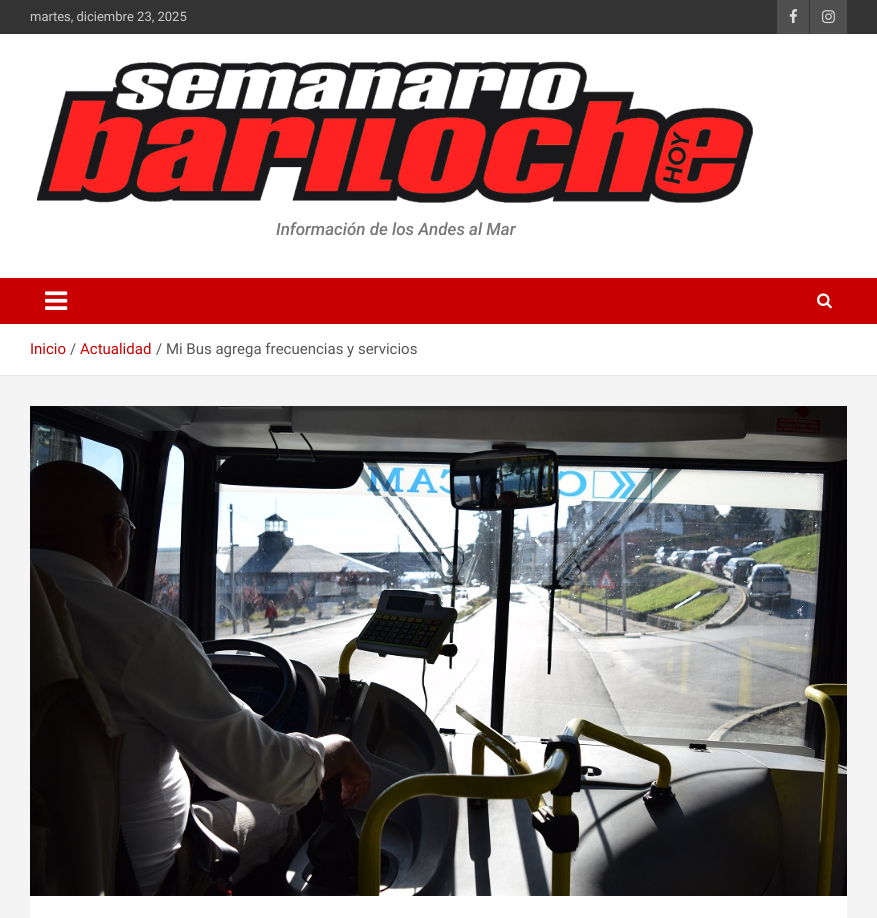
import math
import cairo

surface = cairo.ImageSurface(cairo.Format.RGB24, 877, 918)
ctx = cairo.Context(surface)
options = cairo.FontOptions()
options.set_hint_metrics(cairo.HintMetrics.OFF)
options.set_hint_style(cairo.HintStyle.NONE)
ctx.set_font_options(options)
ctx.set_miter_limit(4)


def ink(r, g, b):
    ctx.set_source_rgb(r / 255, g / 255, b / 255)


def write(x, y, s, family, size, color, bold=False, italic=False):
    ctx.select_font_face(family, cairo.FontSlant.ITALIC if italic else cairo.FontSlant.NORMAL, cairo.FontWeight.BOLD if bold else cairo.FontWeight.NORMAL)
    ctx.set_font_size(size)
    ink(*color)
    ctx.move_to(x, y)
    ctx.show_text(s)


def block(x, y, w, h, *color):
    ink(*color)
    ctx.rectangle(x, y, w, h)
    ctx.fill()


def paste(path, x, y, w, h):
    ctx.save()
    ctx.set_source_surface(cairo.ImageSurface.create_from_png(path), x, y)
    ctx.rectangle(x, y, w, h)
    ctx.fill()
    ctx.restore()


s1 = dict(family="Roboto", size=13, color=(204, 204, 204))
s2 = dict(family="Roboto Medium", size=17, color=(119, 119, 119), italic=True)
s3 = dict(family="Roboto", size=15, color=(200, 0, 0))
s4 = dict(family="Roboto", size=15, color=(85, 85, 85))

ink(244, 244, 244)
ctx.paint()
block(0, 0, 877, 34, 51, 51, 51)
write(30, 21, "martes, diciembre 23, 2025", **s1)
block(777, 0, 32, 34, 79, 79, 79)
paste("pic1.png", 789, 9, 9, 15)
block(810, 0, 37, 34, 79, 79, 79)
paste("pic2.png", 822, 10, 13, 14)
block(0, 34, 877, 244, 255, 255, 255)
paste("pic3.png", 37, 61, 716, 142)
write(276, 235, "Información de los Andes al Mar", **s2)
block(0, 278, 877, 46, 200, 0, 0)
paste("pic4.png", 45, 291, 23, 19)
paste("pic5.png", 817, 293, 15, 16)
block(0, 324, 877, 51, 255, 255, 255)
block(0, 375, 877, 1, 230, 230, 230)
write(30, 354, "Inicio", **s3)
write(70, 354, "/", **s4)
write(80, 354, "Actualidad", **s3)
write(156, 354, "/ Mi Bus agrega frecuencias y servicios", **s4)
block(30, 896, 817, 22, 255, 255, 255)
paste("pic6.png", 30, 406, 817, 490)
surface.write_to_png("screenshot.png")
